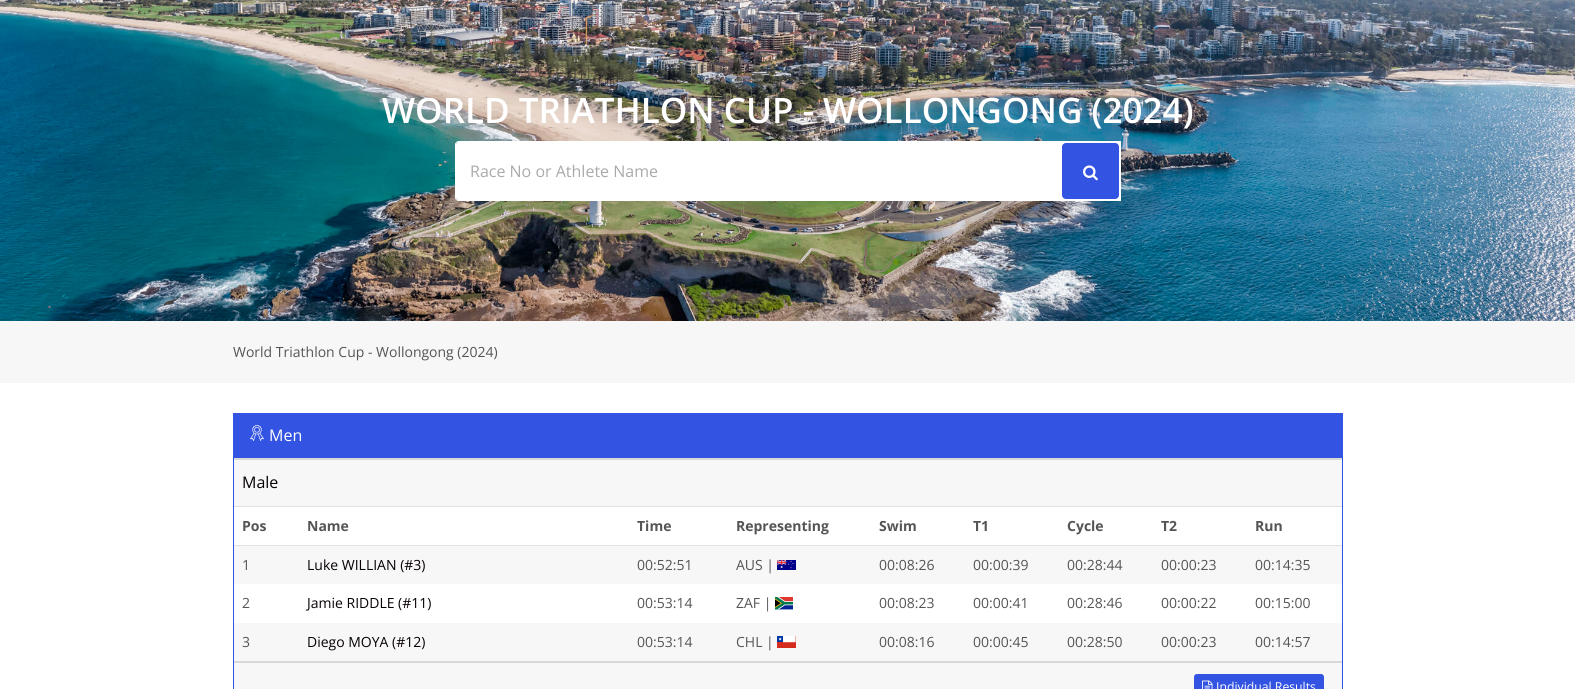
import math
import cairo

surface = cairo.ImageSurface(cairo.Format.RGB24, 1575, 689)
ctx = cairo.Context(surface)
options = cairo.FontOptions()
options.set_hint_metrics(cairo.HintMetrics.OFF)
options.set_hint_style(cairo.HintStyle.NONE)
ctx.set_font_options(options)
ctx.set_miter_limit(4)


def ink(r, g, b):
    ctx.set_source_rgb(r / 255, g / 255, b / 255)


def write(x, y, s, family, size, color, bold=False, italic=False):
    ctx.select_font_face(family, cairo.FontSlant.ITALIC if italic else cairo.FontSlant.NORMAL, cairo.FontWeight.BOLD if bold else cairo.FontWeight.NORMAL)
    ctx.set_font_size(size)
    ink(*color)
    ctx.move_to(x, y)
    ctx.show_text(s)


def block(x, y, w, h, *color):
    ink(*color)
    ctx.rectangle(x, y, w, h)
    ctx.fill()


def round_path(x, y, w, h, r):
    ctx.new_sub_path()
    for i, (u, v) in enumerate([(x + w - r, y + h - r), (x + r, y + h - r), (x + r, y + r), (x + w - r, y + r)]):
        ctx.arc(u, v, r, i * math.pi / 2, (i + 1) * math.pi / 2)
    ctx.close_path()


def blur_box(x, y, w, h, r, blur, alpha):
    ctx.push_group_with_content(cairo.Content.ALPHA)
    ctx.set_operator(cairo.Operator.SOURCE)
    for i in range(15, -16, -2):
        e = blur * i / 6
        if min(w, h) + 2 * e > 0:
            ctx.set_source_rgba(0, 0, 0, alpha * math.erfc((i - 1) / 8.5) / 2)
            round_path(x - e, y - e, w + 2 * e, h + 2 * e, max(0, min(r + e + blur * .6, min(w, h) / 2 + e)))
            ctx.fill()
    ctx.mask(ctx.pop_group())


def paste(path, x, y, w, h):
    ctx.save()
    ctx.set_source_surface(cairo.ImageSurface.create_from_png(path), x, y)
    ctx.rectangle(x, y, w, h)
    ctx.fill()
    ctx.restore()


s1 = dict(family="Open Sans SemiBold", size=35, color=(255, 255, 255))
s2 = dict(family="Open Sans", size=16, color=(170, 170, 170))
s3 = dict(family="Open Sans", size=14, color=(85, 85, 85))
s4 = dict(family="Open Sans", size=16, color=(255, 255, 255))
s5 = dict(family="Open Sans", size=16, color=(8, 1, 3))
s6 = dict(family="Open Sans", size=14, color=(85, 85, 85), bold=True)
s7 = dict(family="Open Sans", size=14, color=(8, 1, 3))
s8 = dict(family="Open Sans", size=12.25, color=(255, 255, 255))

ink(255, 255, 255)
ctx.paint()
paste("pic1.png", 0, 0, 1575, 321)
ctx.set_source_rgba(1, 1, 1, 0.2)
ctx.rectangle(233, 0, 110, 1)
ctx.fill()
write(382, 123, "WORLD TRIATHLON CUP - WOLLONGONG (2024)", **s1)
ink(0, 0, 0)
blur_box(467, 173, 642, 36, 0, 12.5, 0.09)
ink(255, 255, 255)
ctx.new_path()
ctx.move_to(458.5, 142)
ctx.line_to(1060, 142)
ctx.line_to(1060, 200)
ctx.line_to(458.5, 200)
ctx.curve_to(457, 200, 456, 199, 456, 197.5)
ctx.line_to(456, 144.5)
ctx.curve_to(456, 143, 457, 142, 458.5, 142)
ctx.close_path()
ctx.fill()
ctx.set_fill_rule(cairo.FillRule.EVEN_ODD)
ctx.new_path()
ctx.move_to(458, 141)
ctx.line_to(1060, 141)
ctx.line_to(1060, 201)
ctx.line_to(458, 201)
ctx.curve_to(457, 201, 455, 199, 455, 198)
ctx.line_to(455, 144)
ctx.curve_to(455, 143, 457, 141, 458, 141)
ctx.close_path()
ctx.move_to(458, 142)
ctx.line_to(1060, 142)
ctx.line_to(1060, 200)
ctx.line_to(458, 200)
ctx.curve_to(457, 200, 456, 199, 456, 198)
ctx.line_to(456, 144)
ctx.curve_to(456, 143, 457, 142, 458, 142)
ctx.close_path()
ctx.fill()
write(470, 177, "Race No or Athlete Name", **s2)
block(1060, 141, 61, 60, 255, 255, 255)
ink(51, 83, 226)
round_path(1062, 143, 57, 56, 4)
ctx.fill()
paste("pic2.png", 1083, 165, 15, 16)
block(0, 321, 1575, 62, 247, 247, 247)
write(233, 357, "World Triathlon Cup - Wollongong (2024)", **s3)
ctx.rectangle(233.5, 413.5, 1109, 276)
ink(51, 83, 226)
ctx.set_line_width(1)
ctx.stroke()
block(234, 414, 1108, 44, 51, 83, 226)
paste("pic3.png", 250, 425, 14, 16)
write(269, 441, "Men", **s4)
block(234, 460, 1108, 46, 247, 247, 247)
block(234, 458, 1108, 2, 216, 216, 216)
write(242, 488, "Male", **s5)
write(242, 531, "Pos", **s6)
write(307, 531, "Name", **s6)
write(637, 531, "Time", **s6)
write(736, 531, "Representing", **s6)
write(879, 531, "Swim", **s6)
write(973, 531, "T1", **s6)
write(1067, 531, "Cycle", **s6)
write(1161, 531, "T2", **s6)
block(234, 506, 1108, 1, 222, 226, 230)
block(234, 545, 1108, 1, 222, 226, 230)
write(1255, 531, "Run", **s6)
block(234, 546, 1108, 38, 247, 247, 247)
write(242, 570, "1", **s3)
write(307, 570, "Luke WILLIAN (#3)", **s7)
write(637, 570, "00:52:51", **s3)
write(736, 570, "AUS |", **s3)
paste("pic4.png", 777, 560, 19, 10)
write(879, 570, "00:08:26", **s3)
write(973, 570, "00:00:39", **s3)
write(1067, 570, "00:28:44", **s3)
write(1161, 570, "00:00:23", **s3)
write(1255, 570, "00:14:35", **s3)
write(242, 608, "2", **s3)
write(307, 608, "Jamie RIDDLE (#11)", **s7)
write(637, 608, "00:53:14", **s3)
write(736, 608, "ZAF |", **s3)
paste("pic5.png", 775, 597, 18, 13)
write(879, 608, "00:08:23", **s3)
write(973, 608, "00:00:41", **s3)
write(1067, 608, "00:28:46", **s3)
write(1161, 608, "00:00:22", **s3)
write(1255, 608, "00:15:00", **s3)
block(234, 623, 1108, 38, 247, 247, 247)
write(242, 647, "3", **s3)
write(307, 647, "Diego MOYA (#12)", **s7)
write(637, 647, "00:53:14", **s3)
write(736, 647, "CHL |", **s3)
paste("pic6.png", 777, 636, 19, 12)
write(879, 647, "00:08:16", **s3)
write(973, 647, "00:00:45", **s3)
write(1067, 647, "00:28:50", **s3)
write(1161, 647, "00:00:23", **s3)
write(1255, 647, "00:14:57", **s3)
block(234, 663, 1108, 26, 247, 247, 247)
block(234, 661, 1108, 2, 216, 216, 216)
ink(51, 83, 226)
round_path(1194, 674, 130, 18, 3)
ctx.fill()
paste("pic7.png", 1202, 680, 11, 9)
write(1216, 691, "Individual Results", **s8)
surface.write_to_png("screenshot.png")
